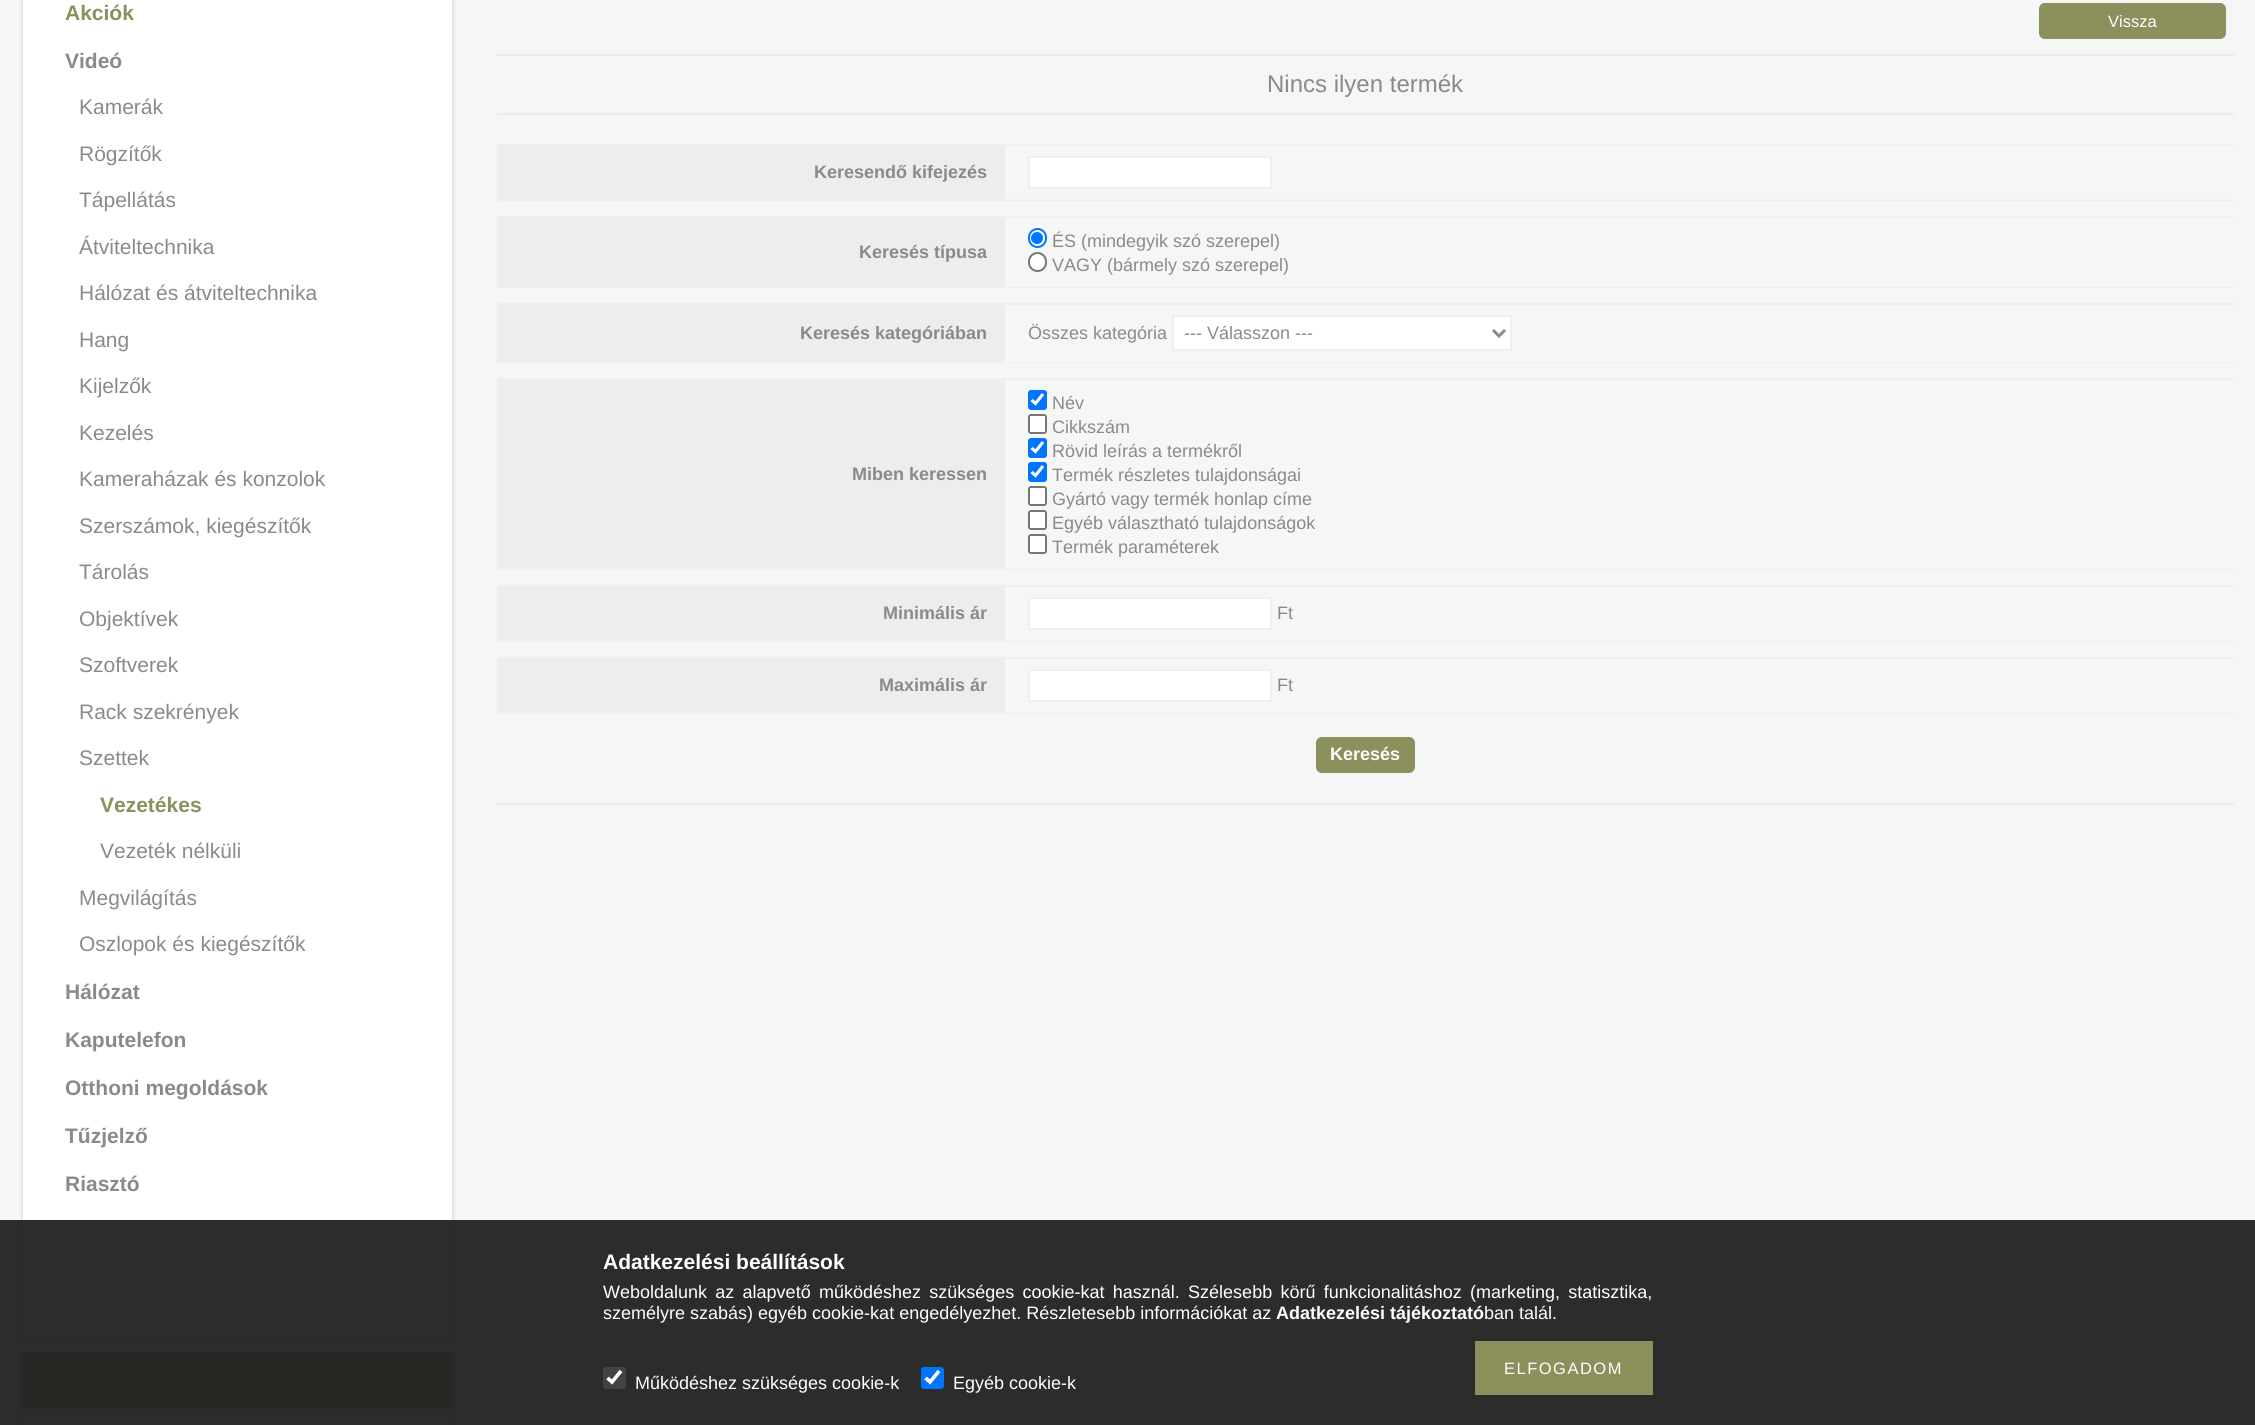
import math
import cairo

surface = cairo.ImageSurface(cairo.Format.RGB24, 2255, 1425)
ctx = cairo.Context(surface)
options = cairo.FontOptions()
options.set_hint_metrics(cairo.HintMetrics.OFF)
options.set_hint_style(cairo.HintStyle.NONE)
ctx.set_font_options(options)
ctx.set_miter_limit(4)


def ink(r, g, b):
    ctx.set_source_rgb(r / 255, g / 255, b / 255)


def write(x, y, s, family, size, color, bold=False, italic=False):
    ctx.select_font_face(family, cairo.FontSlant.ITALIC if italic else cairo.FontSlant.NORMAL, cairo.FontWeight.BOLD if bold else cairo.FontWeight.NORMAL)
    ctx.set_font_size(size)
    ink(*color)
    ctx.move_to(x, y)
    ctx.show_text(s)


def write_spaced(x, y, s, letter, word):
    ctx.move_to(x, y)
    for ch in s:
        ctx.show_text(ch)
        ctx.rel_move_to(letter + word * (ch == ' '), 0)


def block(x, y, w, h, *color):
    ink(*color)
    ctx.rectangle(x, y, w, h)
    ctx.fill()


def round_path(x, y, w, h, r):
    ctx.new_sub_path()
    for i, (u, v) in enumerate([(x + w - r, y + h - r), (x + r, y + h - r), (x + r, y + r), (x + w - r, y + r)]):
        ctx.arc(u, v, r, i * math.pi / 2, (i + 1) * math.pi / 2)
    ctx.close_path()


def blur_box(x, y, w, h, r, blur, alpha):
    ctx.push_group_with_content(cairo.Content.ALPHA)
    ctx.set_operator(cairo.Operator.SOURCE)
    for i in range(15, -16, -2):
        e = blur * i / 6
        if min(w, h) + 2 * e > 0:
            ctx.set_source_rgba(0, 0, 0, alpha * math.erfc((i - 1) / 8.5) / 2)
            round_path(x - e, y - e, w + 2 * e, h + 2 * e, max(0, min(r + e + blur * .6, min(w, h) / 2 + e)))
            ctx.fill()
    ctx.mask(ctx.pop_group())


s1 = dict(family="Liberation Sans", size=21, color=(139, 144, 93), bold=True)
s2 = dict(family="Liberation Sans", size=21, color=(139, 138, 138), bold=True)
s3 = dict(family="Liberation Sans", size=21, color=(139, 138, 138))
s4 = dict(family="Liberation Sans", size=16.5, color=(255, 255, 255))
s5 = dict(family="Liberation Sans", size=24, color=(139, 138, 138))
s6 = dict(family="Liberation Sans", size=18, color=(139, 138, 138), bold=True)
s7 = dict(family="Liberation Sans", size=18, color=(139, 138, 138))
s8 = dict(family="Liberation Sans", size=18, color=(255, 255, 255), bold=True)
s9 = dict(family="Liberation Sans", size=21, color=(255, 255, 255), bold=True)
s10 = dict(family="Liberation Sans", size=18, color=(255, 255, 255))

ink(245, 246, 246)
ctx.paint()
ink(0, 0, 0)
blur_box(23, -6, 429, 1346, 0, 2, 0.2)
block(23, 0, 429, 1337, 255, 255, 255)
write(65, 20, "Akciók", **s1)
write(65, 68, "Videó", **s2)
write(79, 114, "Kamerák", **s3)
write(79, 161, "Rögzítők", **s3)
write(79, 207, "Tápellátás", **s3)
write(79, 254, "Átviteltechnika", **s3)
write(79, 300, "Hálózat és átviteltechnika", **s3)
write(79, 347, "Hang", **s3)
write(79, 393, "Kijelzők", **s3)
write(79, 440, "Kezelés", **s3)
write(79, 486, "Kameraházak és konzolok", **s3)
write(79, 533, "Szerszámok, kiegészítők", **s3)
write(79, 579, "Tárolás", **s3)
write(79, 626, "Objektívek", **s3)
write(79, 672, "Szoftverek", **s3)
write(79, 719, "Rack szekrények", **s3)
write(79, 765, "Szettek", **s3)
write(100, 812, "Vezetékes", **s1)
write(100, 858, "Vezeték nélküli", **s3)
write(79, 905, "Megvilágítás", **s3)
write(79, 951, "Oszlopok és kiegészítők", **s3)
write(65, 999, "Hálózat", **s2)
write(65, 1047, "Kaputelefon", **s2)
write(65, 1095, "Otthoni megoldások", **s2)
write(65, 1143, "Tűzjelző", **s2)
write(65, 1191, "Riasztó", **s2)
ink(0, 0, 0)
blur_box(23, 1355, 429, 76, 0, 2, 0.2)
block(23, 1352, 429, 57, 139, 144, 93)
block(23, 1409, 429, 16, 255, 255, 255)
ink(139, 144, 93)
round_path(2039, 3, 187, 36, 6)
ctx.fill()
write(2108, 27, "Vissza", **s4)
block(497, 54, 1737, 2, 236, 234, 234)
write(1267, 92, "Nincs ilyen termék", **s5)
block(497, 113, 1737, 2, 236, 234, 234)
ctx.save()
ctx.rectangle(497, 129, 1737, 659)
ctx.clip()
ctx.rectangle(498, 145, 1738, 55)
ink(239, 239, 239)
ctx.stroke()
ctx.restore()
block(499, 146, 506, 53, 237, 237, 237)
write(814, 178, "Keresendő kifejezés", **s6)
block(1005, 199, 1229, 1, 245, 245, 245)
ink(255, 255, 255)
ctx.rectangle(1029, 157, 242, 31)
ctx.fill_preserve()
ink(239, 239, 239)
ctx.stroke()
ctx.save()
ctx.rectangle(497, 129, 1737, 659)
ctx.clip()
ctx.rectangle(498, 217, 1738, 70)
ctx.stroke()
ctx.restore()
block(499, 218, 506, 68, 237, 237, 237)
write(859, 258, "Keresés típusa", **s6)
block(1005, 286, 1229, 1, 245, 245, 245)
ink(255, 255, 255)
round_path(1029, 229, 17, 18, 8.5)
ctx.fill_preserve()
ink(0, 117, 255)
ctx.stroke()
ctx.arc(1037, 238, 6, 0, 2 * math.pi)
ctx.fill()
write(1052, 247, "ÉS (mindegyik szó szerepel)", **s7)
ink(255, 255, 255)
round_path(1029, 253, 17, 18, 8.5)
ctx.fill_preserve()
ink(118, 118, 118)
ctx.stroke()
write(1052, 271, "VAGY (bármely szó szerepel)", **s7)
ctx.save()
ctx.rectangle(497, 129, 1737, 659)
ctx.clip()
ctx.rectangle(498, 304, 1738, 58)
ink(239, 239, 239)
ctx.stroke()
ctx.restore()
block(499, 305, 506, 56, 237, 237, 237)
write(800, 339, "Keresés kategóriában", **s6)
block(1005, 361, 1229, 1, 245, 245, 245)
write(1028, 339, "Összes kategória", **s7)
ink(255, 255, 255)
ctx.rectangle(1173, 316, 338, 34)
ctx.fill_preserve()
ink(239, 239, 239)
ctx.stroke()
ctx.new_path()
ctx.move_to(1493, 330)
ctx.line_to(1499, 336)
ctx.line_to(1505, 330)
ink(139, 138, 138)
ctx.set_line_width(3)
ctx.stroke()
write(1184, 339, "--- Válasszon ---", **s7)
ctx.save()
ctx.rectangle(497, 129, 1737, 659)
ctx.clip()
ctx.rectangle(498, 379, 1738, 190)
ink(239, 239, 239)
ctx.set_line_width(2)
ctx.stroke()
ctx.restore()
block(499, 380, 506, 188, 237, 237, 237)
write(852, 480, "Miben keressen", **s6)
block(1005, 568, 1229, 1, 245, 245, 245)
ink(0, 117, 255)
round_path(1028, 390, 19, 20, 3)
ctx.fill()
ctx.new_path()
ctx.move_to(1031.5, 400)
ctx.line_to(1035.5, 403.5)
ctx.line_to(1043, 394)
ink(255, 255, 255)
ctx.set_line_width(3.1)
ctx.stroke()
write(1052, 409, "Név", **s7)
ink(255, 255, 255)
round_path(1029, 415, 17, 18, 2)
ctx.fill_preserve()
ink(118, 118, 118)
ctx.set_line_width(2)
ctx.stroke()
write(1052, 433, "Cikkszám", **s7)
ink(0, 117, 255)
round_path(1028, 438, 19, 20, 3)
ctx.fill()
ctx.new_path()
ctx.move_to(1031.5, 448)
ctx.line_to(1035.5, 451.5)
ctx.line_to(1043, 442)
ink(255, 255, 255)
ctx.set_line_width(3.1)
ctx.stroke()
write(1052, 457, "Rövid leírás a termékről", **s7)
ink(0, 117, 255)
round_path(1028, 462, 19, 20, 3)
ctx.fill()
ctx.new_path()
ctx.move_to(1031.5, 472)
ctx.line_to(1035.5, 475.5)
ctx.line_to(1043, 466)
ink(255, 255, 255)
ctx.stroke()
write(1052, 481, "Termék részletes tulajdonságai", **s7)
ink(255, 255, 255)
round_path(1029, 487, 17, 18, 2)
ctx.fill_preserve()
ink(118, 118, 118)
ctx.set_line_width(2)
ctx.stroke()
write(1052, 505, "Gyártó vagy termék honlap címe", **s7)
ink(255, 255, 255)
round_path(1029, 511, 17, 18, 2)
ctx.fill_preserve()
ink(118, 118, 118)
ctx.stroke()
write(1052, 529, "Egyéb választható tulajdonságok", **s7)
ink(255, 255, 255)
round_path(1029, 535, 17, 18, 2)
ctx.fill_preserve()
ink(118, 118, 118)
ctx.stroke()
write(1052, 553, "Termék paraméterek", **s7)
ctx.save()
ctx.rectangle(497, 129, 1737, 659)
ctx.clip()
ctx.rectangle(498, 586, 1738, 55)
ink(239, 239, 239)
ctx.stroke()
ctx.restore()
block(499, 587, 506, 53, 237, 237, 237)
write(883, 619, "Minimális ár", **s6)
block(1005, 640, 1229, 1, 245, 245, 245)
ink(255, 255, 255)
ctx.rectangle(1029, 598, 242, 31)
ctx.fill_preserve()
ink(239, 239, 239)
ctx.stroke()
write(1277, 619, "Ft", **s7)
ctx.save()
ctx.rectangle(497, 129, 1737, 659)
ctx.clip()
ctx.rectangle(498, 658, 1738, 55)
ink(239, 239, 239)
ctx.stroke()
ctx.restore()
block(499, 659, 506, 53, 237, 237, 237)
write(879, 691, "Maximális ár", **s6)
block(1005, 712, 1229, 1, 245, 245, 245)
ink(255, 255, 255)
ctx.rectangle(1029, 670, 242, 31)
ctx.fill_preserve()
ink(239, 239, 239)
ctx.stroke()
write(1277, 691, "Ft", **s7)
ink(139, 144, 93)
round_path(1316, 737, 99, 36, 6)
ctx.fill()
write(1330, 760, "Keresés", **s8)
block(497, 803, 1737, 2, 236, 234, 234)
ctx.set_source_rgba(0.133, 0.133, 0.133, 0.95)
ctx.rectangle(0, 1220, 2255, 205)
ctx.fill()
write(603, 1269, "Adatkezelési beállítások", **s9)
ctx.select_font_face("Liberation Sans")
ctx.set_font_size(18)
write_spaced(603, 1298, "Weboldalunk az alapvető működéshez szükséges cookie-kat használ. Szélesebb körű funkcionalitáshoz (marketing, statisztika,", 0, 3.25)
write(603, 1319, "személyre szabás) egyéb cookie-kat engedélyezhet. Részletesebb információkat az", **s10)
write(1276, 1319, "Adatkezelési tájékoztató", **s8)
write(1484, 1319, "ban talál.", **s10)
block(1475, 1341, 178, 54, 139, 144, 93)
ctx.set_font_size(16.5)
ink(255, 255, 255)
write_spaced(1504, 1374, "ELFOGADOM", 1.5, 0)
ink(67, 67, 67)
round_path(603, 1367, 23, 22, 3)
ctx.fill()
ctx.new_path()
ctx.move_to(607.5, 1378)
ctx.line_to(612, 1382)
ctx.line_to(621, 1371)
ink(255, 255, 255)
ctx.set_line_width(3.6)
ctx.stroke()
write(635, 1389, "Működéshez szükséges cookie-k", **s10)
ink(0, 117, 255)
round_path(921, 1367, 23, 22, 3)
ctx.fill()
ctx.new_path()
ctx.move_to(925.5, 1378)
ctx.line_to(930, 1382)
ctx.line_to(939, 1371)
ink(255, 255, 255)
ctx.stroke()
write(953, 1389, "Egyéb cookie-k", **s10)
surface.write_to_png("screenshot.png")
